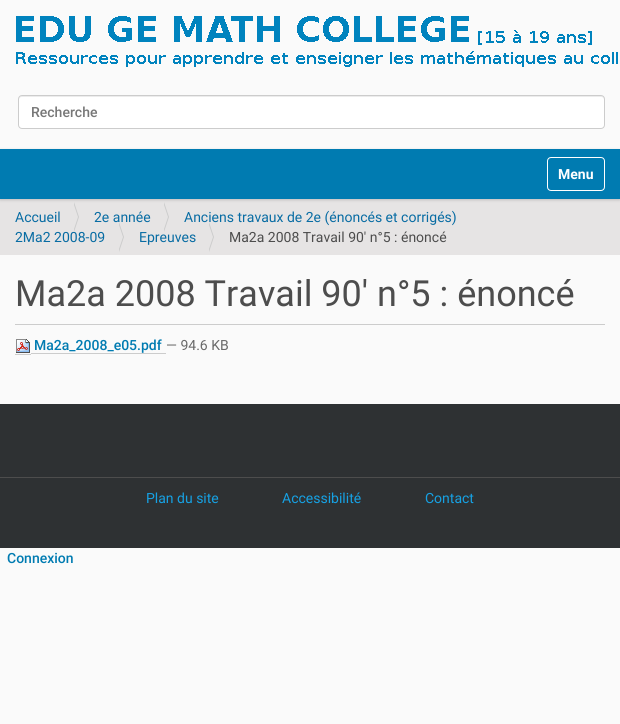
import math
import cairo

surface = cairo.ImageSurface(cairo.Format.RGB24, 620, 724)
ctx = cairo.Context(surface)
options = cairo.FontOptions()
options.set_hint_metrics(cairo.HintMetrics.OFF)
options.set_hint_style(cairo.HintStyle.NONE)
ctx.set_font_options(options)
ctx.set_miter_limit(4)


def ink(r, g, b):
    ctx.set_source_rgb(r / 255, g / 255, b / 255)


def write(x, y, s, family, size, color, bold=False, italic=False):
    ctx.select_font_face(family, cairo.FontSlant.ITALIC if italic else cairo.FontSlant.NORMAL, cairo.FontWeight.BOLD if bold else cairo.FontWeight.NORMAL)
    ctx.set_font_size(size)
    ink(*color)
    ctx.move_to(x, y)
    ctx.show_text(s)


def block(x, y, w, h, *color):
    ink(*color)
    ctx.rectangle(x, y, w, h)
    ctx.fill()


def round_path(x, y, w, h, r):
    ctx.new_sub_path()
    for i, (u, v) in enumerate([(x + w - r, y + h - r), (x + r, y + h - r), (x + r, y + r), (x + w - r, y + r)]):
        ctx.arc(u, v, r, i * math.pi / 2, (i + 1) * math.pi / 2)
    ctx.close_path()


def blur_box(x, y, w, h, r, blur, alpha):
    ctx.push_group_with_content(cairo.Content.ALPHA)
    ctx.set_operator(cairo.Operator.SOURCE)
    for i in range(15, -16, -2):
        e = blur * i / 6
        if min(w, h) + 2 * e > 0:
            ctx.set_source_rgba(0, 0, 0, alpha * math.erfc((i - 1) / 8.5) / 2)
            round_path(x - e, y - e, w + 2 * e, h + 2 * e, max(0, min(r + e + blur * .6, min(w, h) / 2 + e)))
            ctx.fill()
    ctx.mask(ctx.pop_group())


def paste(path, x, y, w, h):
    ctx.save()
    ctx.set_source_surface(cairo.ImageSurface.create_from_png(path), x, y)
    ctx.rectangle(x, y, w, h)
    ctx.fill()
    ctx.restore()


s1 = dict(family="Roboto Medium", size=14, color=(119, 119, 119))
s2 = dict(family="Roboto", size=14, color=(255, 255, 255), bold=True)
s3 = dict(family="Roboto", size=14, color=(8, 108, 163))
s4 = dict(family="Roboto", size=14, color=(77, 77, 77))
s5 = dict(family="Roboto", size=36, color=(77, 77, 77))
s6 = dict(family="Roboto Medium", size=14, color=(0, 123, 177))
s7 = dict(family="Roboto", size=14, color=(105, 105, 105))
s8 = dict(family="Roboto", size=14, color=(22, 161, 227))

ink(250, 250, 250)
ctx.paint()
paste("pic1.png", 16, 16, 602, 51)
ink(255, 255, 255)
round_path(18, 95, 587, 34, 4)
ctx.fill()
ink(236, 236, 236)
ctx.new_path()
ctx.move_to(22, 97)
ctx.line_to(601, 97)
ctx.curve_to(603, 97, 604, 98, 604, 100)
ctx.line_to(604, 99)
ctx.curve_to(604, 97, 603, 96, 601, 96)
ctx.line_to(22, 96)
ctx.curve_to(20, 96, 19, 97, 19, 99)
ctx.line_to(19, 100)
ctx.curve_to(19, 98, 20, 97, 22, 97)
ctx.close_path()
ctx.fill()
round_path(18.5, 95.5, 586, 33, 3.5)
ink(204, 204, 204)
ctx.set_line_width(1)
ctx.stroke()
write(31, 117, "Recherche", **s1)
block(0, 199, 620, 56, 230, 228, 228)
ink(0, 0, 0)
blur_box(0, 150, 620, 50, 0, 1.5, 0.17)
block(0, 149, 620, 50, 0, 123, 177)
round_path(547.5, 157.5, 57, 33, 3.5)
ink(255, 255, 255)
ctx.stroke()
write(558, 179, "Menu", **s2)
write(15, 222, "Accueil", **s3)
ink(204, 204, 204)
ctx.new_path()
ctx.move_to(74, 232)
ctx.line_to(74, 202)
ctx.line_to(79, 217)
ctx.close_path()
ctx.fill()
ink(230, 228, 228)
ctx.new_path()
ctx.move_to(73, 232)
ctx.line_to(73, 202)
ctx.line_to(78, 217)
ctx.close_path()
ctx.fill()
write(94, 222, "2e année", **s3)
ink(204, 204, 204)
ctx.new_path()
ctx.move_to(164, 232)
ctx.line_to(164, 202)
ctx.line_to(169, 217)
ctx.close_path()
ctx.fill()
ink(230, 228, 228)
ctx.new_path()
ctx.move_to(163, 232)
ctx.line_to(163, 202)
ctx.line_to(168, 217)
ctx.close_path()
ctx.fill()
write(184, 222, "Anciens travaux de 2e (énoncés et corrigés)", **s3)
write(15, 242, "2Ma2 2008-09", **s3)
ink(204, 204, 204)
ctx.new_path()
ctx.move_to(119, 252)
ctx.line_to(119, 222)
ctx.line_to(124, 237)
ctx.close_path()
ctx.fill()
ink(230, 228, 228)
ctx.new_path()
ctx.move_to(118, 252)
ctx.line_to(118, 222)
ctx.line_to(123, 237)
ctx.close_path()
ctx.fill()
write(139, 242, "Epreuves", **s3)
ink(204, 204, 204)
ctx.new_path()
ctx.move_to(209, 252)
ctx.line_to(209, 222)
ctx.line_to(214, 237)
ctx.close_path()
ctx.fill()
ink(230, 228, 228)
ctx.new_path()
ctx.move_to(208, 252)
ctx.line_to(208, 222)
ctx.line_to(213, 237)
ctx.close_path()
ctx.fill()
write(229, 242, "Ma2a 2008 Travail 90' n°5 : énoncé", **s4)
block(15, 324, 590, 1, 204, 204, 204)
write(15, 306, "Ma2a 2008 Travail 90' n°5 : énoncé", **s5)
paste("pic2.png", 16, 339, 14, 14)
write(34, 350, "Ma2a_2008_e05.pdf", **s6)
block(15, 354, 16, 1, 204, 204, 204)
block(31, 353, 135, 1, 204, 204, 204)
write(166, 350, "— 94.6 KB", **s7)
block(0, 404, 620, 144, 46, 49, 51)
block(0, 477, 620, 1, 77, 77, 77)
write(146, 503, "Plan du site", **s8)
write(282, 503, "Accessibilité", **s8)
write(425, 503, "Contact", **s8)
write(7, 563, "Connexion", **s6)
surface.write_to_png("screenshot.png")
